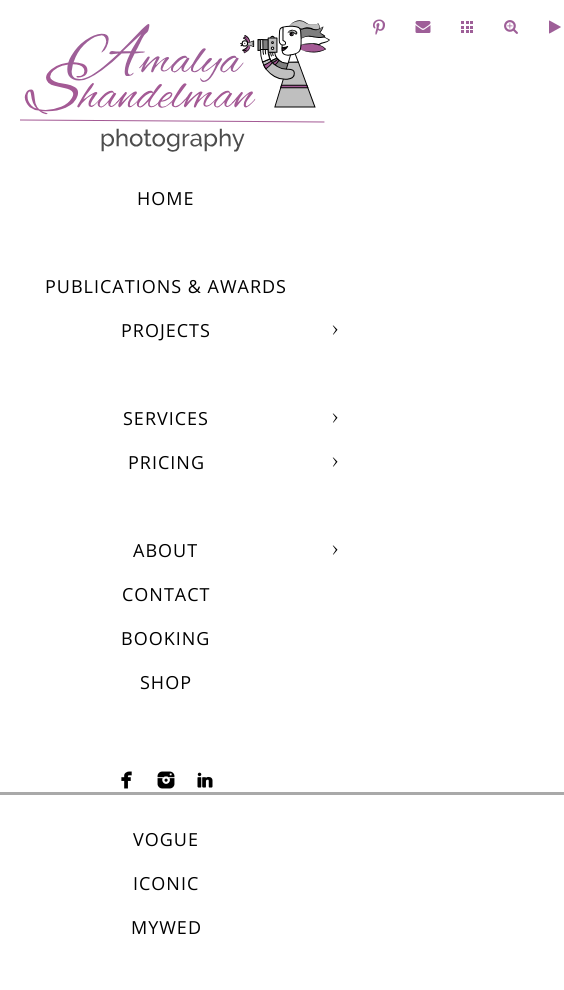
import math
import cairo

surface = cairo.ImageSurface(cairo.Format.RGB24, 564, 990)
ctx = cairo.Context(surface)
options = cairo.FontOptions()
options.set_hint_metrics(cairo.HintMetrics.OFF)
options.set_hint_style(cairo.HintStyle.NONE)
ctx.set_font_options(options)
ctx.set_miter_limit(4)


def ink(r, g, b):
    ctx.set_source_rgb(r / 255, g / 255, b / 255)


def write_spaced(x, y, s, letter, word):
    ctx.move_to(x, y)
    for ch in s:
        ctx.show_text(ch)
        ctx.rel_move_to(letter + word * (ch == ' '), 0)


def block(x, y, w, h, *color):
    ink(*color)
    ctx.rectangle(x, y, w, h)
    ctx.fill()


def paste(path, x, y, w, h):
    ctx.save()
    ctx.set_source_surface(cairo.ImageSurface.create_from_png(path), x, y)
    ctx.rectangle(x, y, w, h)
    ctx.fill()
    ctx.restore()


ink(255, 255, 255)
ctx.paint()
paste("pic1.png", 372, 19, 13, 16)
paste("pic2.png", 415, 21, 16, 12)
paste("pic3.png", 461, 21, 12, 12)
paste("pic4.png", 504, 20, 14, 14)
paste("pic5.png", 549, 20, 12, 14)
paste("pic6.png", 20, 20, 310, 132)
ctx.select_font_face("Open Sans")
ctx.set_font_size(18)
ink(0, 0, 0)
write_spaced(137, 205, "HOME", 1, 0)
write_spaced(45, 293, "PUBLICATIONS & AWARDS", 1, 0)
write_spaced(121, 337, "PROJECTS", 1, 0)
paste("pic7.png", 332, 325, 6, 10)
write_spaced(123, 425, "SERVICES", 1, 0)
paste("pic7.png", 332, 413, 6, 10)
write_spaced(128, 469, "PRICING", 1, 0)
paste("pic7.png", 332, 457, 6, 10)
write_spaced(133, 557, "ABOUT", 1, 0)
paste("pic7.png", 332, 545, 6, 10)
write_spaced(122, 601, "CONTACT", 1, 0)
write_spaced(121, 645, "BOOKING", 1, 0)
write_spaced(140, 689, "SHOP", 1, 0)
paste("pic8.png", 121, 771, 11, 18)
paste("pic9.png", 157, 771, 18, 18)
paste("pic10.png", 197, 772, 16, 16)
write_spaced(133, 846, "VOGUE", 1, 0)
write_spaced(133, 890, "ICONIC", 1, 0)
write_spaced(131, 934, "MYWED", 1, 0)
block(0, 792, 564, 3, 169, 169, 169)
surface.write_to_png("screenshot.png")
